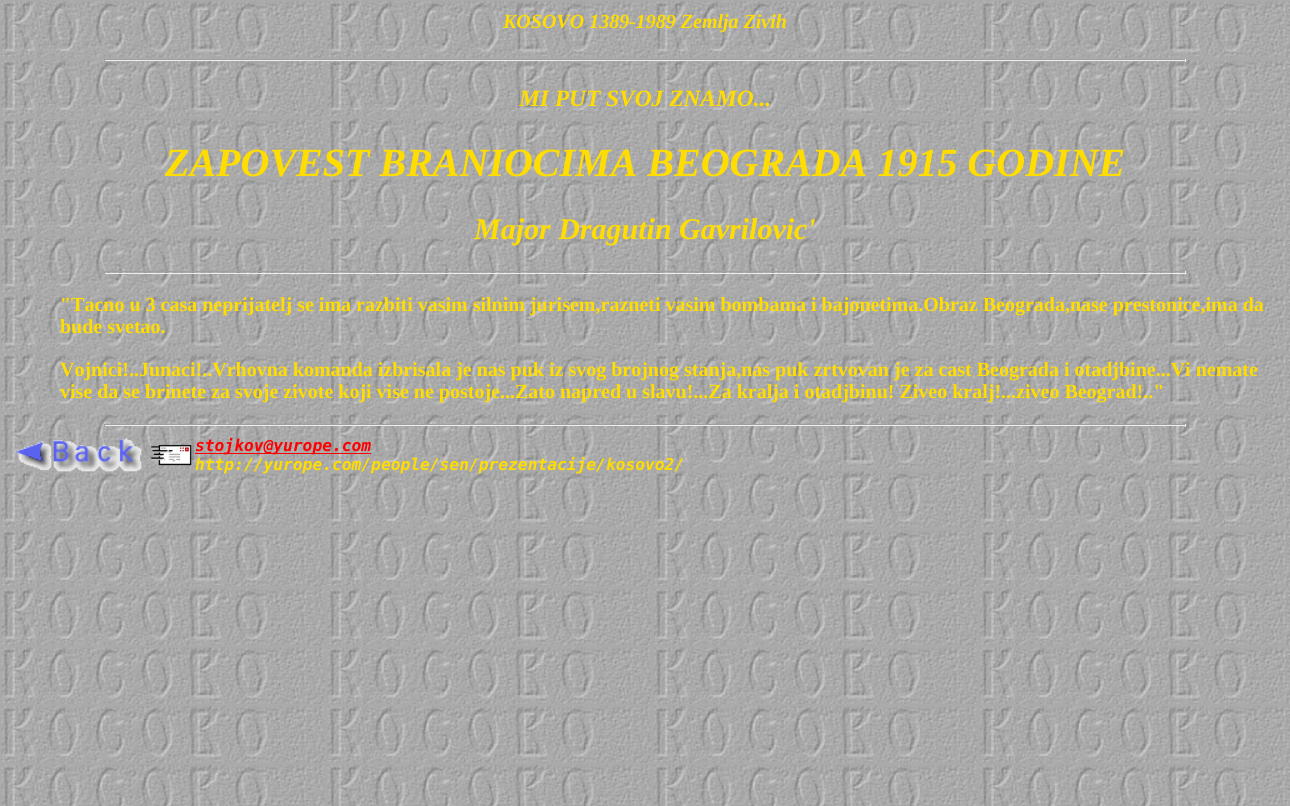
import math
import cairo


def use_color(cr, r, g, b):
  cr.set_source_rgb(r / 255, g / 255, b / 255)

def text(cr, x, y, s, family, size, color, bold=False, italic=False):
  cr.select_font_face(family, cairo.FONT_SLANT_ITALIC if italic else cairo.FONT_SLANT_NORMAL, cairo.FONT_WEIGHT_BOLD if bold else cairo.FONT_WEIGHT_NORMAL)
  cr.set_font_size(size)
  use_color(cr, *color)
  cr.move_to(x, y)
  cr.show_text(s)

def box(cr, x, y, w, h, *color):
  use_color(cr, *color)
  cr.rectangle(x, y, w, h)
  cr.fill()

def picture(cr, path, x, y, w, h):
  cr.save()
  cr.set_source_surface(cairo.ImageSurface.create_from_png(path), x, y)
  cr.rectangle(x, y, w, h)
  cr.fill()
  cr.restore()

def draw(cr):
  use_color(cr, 255, 255, 255)
  cr.paint()
  picture(cr, "img_01.png", 0, 0, 1290, 806)
  box(cr, 104, 59, 1082, 1, 159, 159, 159)
  box(cr, 1185, 59, 1, 3, 238, 238, 238)
  box(cr, 104, 60, 1082, 1, 238, 238, 238)
  box(cr, 104, 59, 1, 3, 159, 159, 159)
  box(cr, 104, 271, 1082, 1, 159, 159, 159)
  box(cr, 1185, 271, 1, 3, 238, 238, 238)
  box(cr, 104, 273, 1082, 1, 238, 238, 238)
  box(cr, 104, 271, 1, 3, 159, 159, 159)
  box(cr, 104, 424, 1082, 1, 159, 159, 159)
  box(cr, 1185, 424, 1, 3, 238, 238, 238)
  box(cr, 104, 425, 1082, 1, 238, 238, 238)
  box(cr, 104, 424, 1, 3, 159, 159, 159)
  picture(cr, "img_02.png", 15, 438, 127, 34)
  picture(cr, "img_03.png", 151, 444, 41, 22)
  box(cr, 195, 453, 176, 1, 255, 0, 0)
  text(cr, 503, 28, "KOSOVO 1389-1989 Zemlja Zivih", "Liberation Serif", 20, (255, 221, 0), bold=True, italic=True)
  text(cr, 519, 106, "MI PUT SVOJ ZNAMO...", "Liberation Serif", 23.4, (255, 221, 0), bold=True, italic=True)
  text(cr, 165, 176, "ZAPOVEST BRANIOCIMA BEOGRADA 1915 GODINE", "Liberation Serif", 40, (255, 221, 0), bold=True, italic=True)
  text(cr, 474, 239, "Major Dragutin Gavrilovic'", "Liberation Serif", 30, (255, 221, 0), bold=True, italic=True)
  text(cr, 60, 311, "\"Tacno u 3 casa neprijatelj se ima razbiti vasim silnim jurisem,razneti vasim bombama i bajonetima.Obraz Beograda,nase prestonice,ima da", "Liberation Serif", 20, (255, 221, 0), bold=True)
  text(cr, 60, 333, "bude svetao.", "Liberation Serif", 20, (255, 221, 0), bold=True)
  text(cr, 60, 376, "Vojnici!..Junaci!..Vrhovna komanda izbrisala je nas puk iz svog brojnog stanja,nas puk zrtvovan je za cast Beograda i otadjbine...Vi nemate", "Liberation Serif", 20, (255, 221, 0), bold=True)
  text(cr, 60, 398, "vise da se brinete za svoje zivote koji vise ne postoje...Zato napred u slavu!...Za kralja i otadjbinu! Ziveo kralj!...ziveo Beograd!..\"", "Liberation Serif", 20, (255, 221, 0), bold=True)
  text(cr, 195, 451, "stojkov@yurope.com", "DejaVu Sans Mono", 16.25, (255, 0, 0), bold=True, italic=True)
  text(cr, 195, 470, "http://yurope.com/people/sen/prezentacije/kosovo2/", "DejaVu Sans Mono", 16.25, (255, 221, 0), bold=True, italic=True)


surface = cairo.ImageSurface(cairo.FORMAT_RGB24, 1290, 806)
cr = cairo.Context(surface)
options = cairo.FontOptions()
options.set_hint_metrics(cairo.HINT_METRICS_OFF)
options.set_hint_style(cairo.HINT_STYLE_NONE)
cr.set_font_options(options)
cr.set_miter_limit(4)
draw(cr)
surface.write_to_png("out.png")
